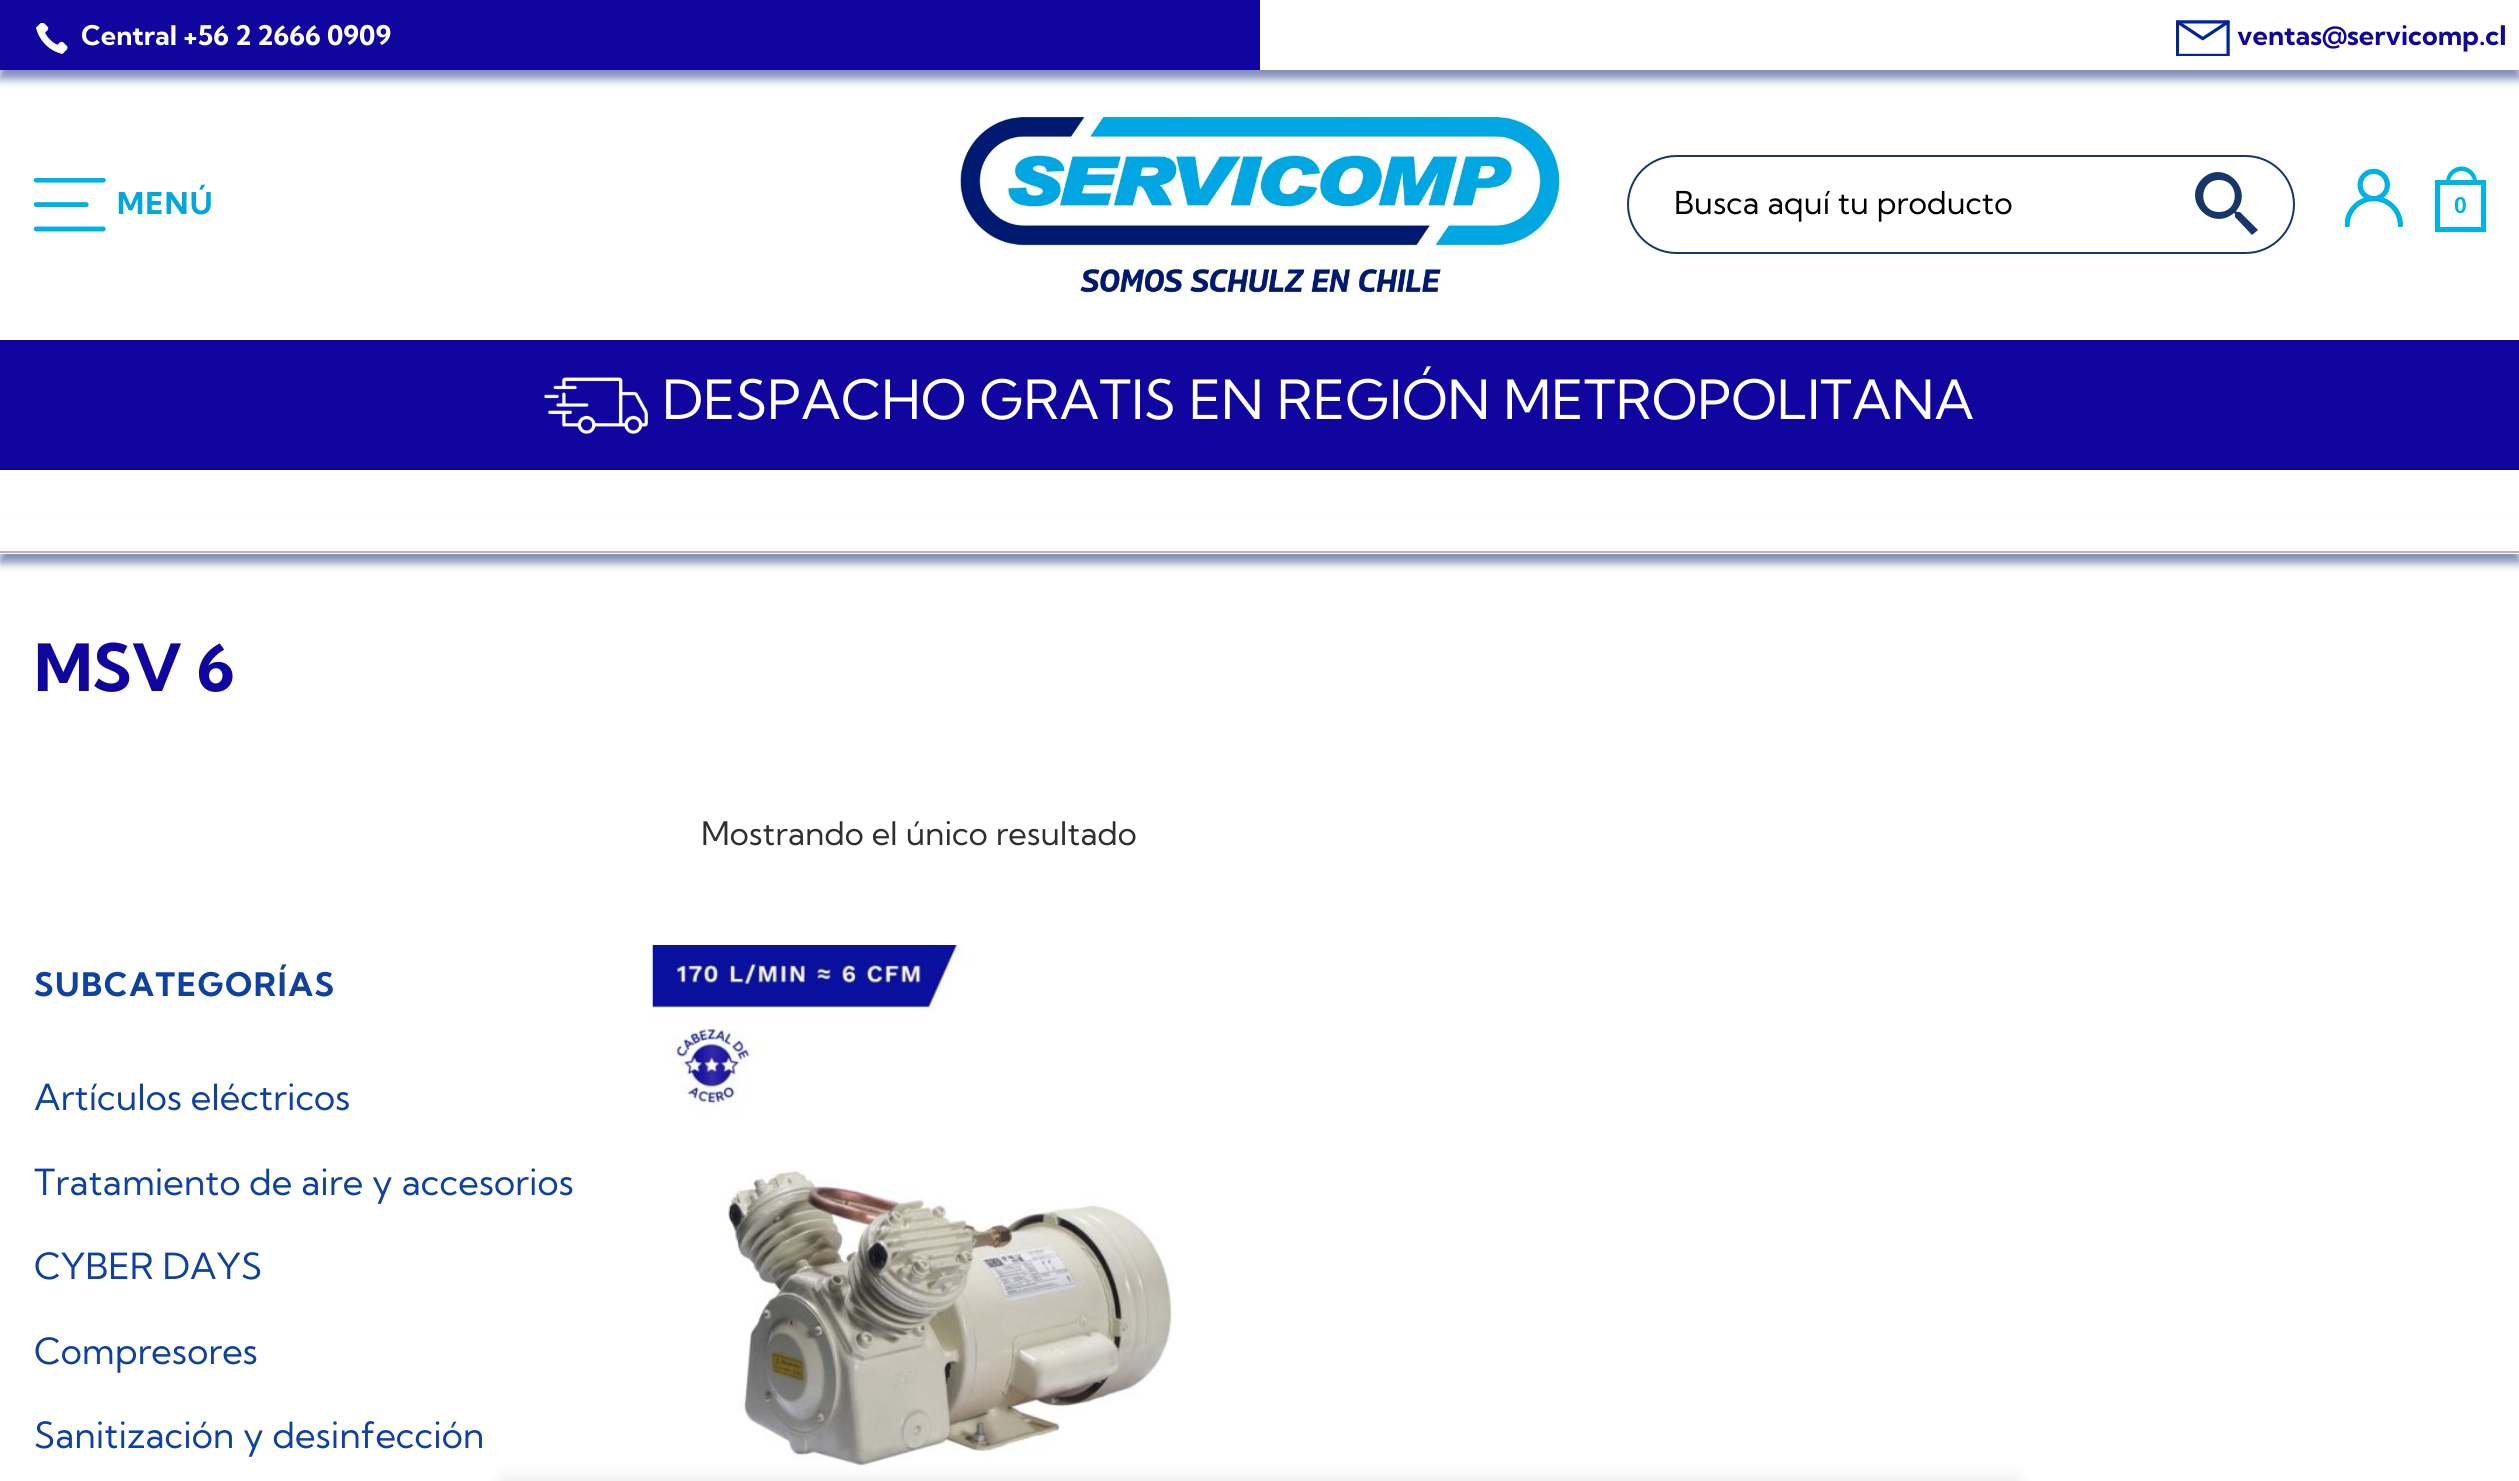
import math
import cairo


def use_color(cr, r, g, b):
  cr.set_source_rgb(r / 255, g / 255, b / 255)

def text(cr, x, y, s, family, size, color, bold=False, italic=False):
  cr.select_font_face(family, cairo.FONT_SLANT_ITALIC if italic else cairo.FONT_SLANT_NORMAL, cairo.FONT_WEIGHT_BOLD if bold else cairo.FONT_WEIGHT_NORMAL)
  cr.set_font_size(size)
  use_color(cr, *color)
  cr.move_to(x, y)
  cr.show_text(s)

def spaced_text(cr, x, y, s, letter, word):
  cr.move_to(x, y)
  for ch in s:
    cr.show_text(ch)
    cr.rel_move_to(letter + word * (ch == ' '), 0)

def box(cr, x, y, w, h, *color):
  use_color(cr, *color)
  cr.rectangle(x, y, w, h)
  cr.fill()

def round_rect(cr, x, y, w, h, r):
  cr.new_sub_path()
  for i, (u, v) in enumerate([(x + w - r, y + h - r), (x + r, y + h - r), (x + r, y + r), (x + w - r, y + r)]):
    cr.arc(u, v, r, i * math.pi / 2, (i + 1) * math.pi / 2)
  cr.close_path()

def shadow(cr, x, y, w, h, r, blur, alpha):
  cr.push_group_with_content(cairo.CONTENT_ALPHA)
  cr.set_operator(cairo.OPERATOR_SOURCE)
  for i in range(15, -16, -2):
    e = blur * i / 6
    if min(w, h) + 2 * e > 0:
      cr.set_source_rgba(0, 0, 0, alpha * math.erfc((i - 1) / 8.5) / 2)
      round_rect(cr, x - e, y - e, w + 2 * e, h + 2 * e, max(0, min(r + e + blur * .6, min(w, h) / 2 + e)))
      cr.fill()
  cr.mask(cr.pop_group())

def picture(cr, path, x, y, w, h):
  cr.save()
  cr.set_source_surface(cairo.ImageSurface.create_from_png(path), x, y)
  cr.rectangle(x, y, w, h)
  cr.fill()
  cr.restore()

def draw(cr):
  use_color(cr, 255, 255, 255)
  cr.paint()
  use_color(cr, 0, 26, 114)
  shadow(cr, 0, 9, 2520, 70, 0, 4.5, 0.5)
  box(cr, 0, 0, 1260, 70, 16, 6, 159)
  box(cr, 1260, 0, 1259, 70, 255, 255, 255)
  picture(cr, "img_01.png", 36, 23, 32, 31)
  picture(cr, "img_02.png", 2176, 20, 54, 36)
  picture(cr, "img_03.png", 34, 178, 72, 54)
  picture(cr, "img_04.png", 960, 112, 600, 185)
  round_rect(cr, 1628, 156, 666, 97, 48.5)
  use_color(cr, 24, 53, 108)
  cr.stroke()
  cr.new_path()
  cr.move_to(2240, 212)
  cr.line_to(2237, 212)
  cr.line_to(2236, 211)
  cr.curve_to(2255, 189, 2223, 158, 2202, 179)
  cr.curve_to(2181, 201, 2212, 232, 2234, 213)
  cr.line_to(2235, 214)
  cr.line_to(2235, 217)
  cr.line_to(2252, 235)
  cr.line_to(2258, 230)
  cr.close_path()
  cr.move_to(2219, 212)
  cr.curve_to(2198, 212, 2198, 180, 2219, 180)
  cr.curve_to(2240, 180, 2240, 212, 2219, 212)
  cr.close_path()
  cr.fill()
  picture(cr, "img_05.png", 2345, 169, 58, 58)
  cr.rectangle(2437.5, 182.5, 46, 47)
  use_color(cr, 0, 181, 226)
  cr.set_line_width(5)
  cr.stroke()
  cr.set_fill_rule(cairo.FILL_RULE_EVEN_ODD)
  cr.new_path()
  cr.move_to(2461.5, 166.5)
  cr.curve_to(2470, 166.5, 2477, 173.5, 2477, 182)
  cr.line_to(2477, 184.5)
  cr.line_to(2446, 184.5)
  cr.line_to(2446, 182)
  cr.curve_to(2446, 173.5, 2453, 166.5, 2461.5, 166.5)
  cr.close_path()
  cr.move_to(2461.5, 171)
  cr.curve_to(2467.5, 171, 2473, 176, 2473, 182)
  cr.line_to(2473, 184.5)
  cr.line_to(2450, 184.5)
  cr.line_to(2450, 182)
  cr.curve_to(2450, 176, 2455.5, 171, 2461.5, 171)
  cr.close_path()
  cr.fill()
  box(cr, 0, 340, 2519, 130, 16, 6, 159)
  picture(cr, "img_06.png", 544, 377, 104, 57)
  cr.save()
  cr.new_path()
  cr.move_to(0, 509)
  cr.line_to(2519, 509)
  cr.line_to(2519, 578)
  cr.line_to(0, 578)
  cr.close_path()
  cr.move_to(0, 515)
  cr.line_to(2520, 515)
  cr.line_to(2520, 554)
  cr.line_to(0, 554)
  cr.close_path()
  cr.clip()
  use_color(cr, 0, 26, 114)
  shadow(cr, 0, 524, 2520, 39, 0, 4.5, 0.5)
  cr.restore()
  box(cr, 0, 551, 2519, 2, 178, 178, 178)
  picture(cr, "img_07.png", 652, 945, 521, 523)
  use_color(cr, 0, 0, 0)
  shadow(cr, 504, 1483, 1512, 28, 0, 10, 0.14)
  text(cr, 81, 45, "Central +56 2 2666 0909", "Kumbh Sans", 27, (255, 255, 255), bold=True)
  text(cr, 2237, 45, "ventas@servicomp.cl", "Kumbh Sans", 27, (16, 6, 159), bold=True)
  cr.set_font_size(30)
  use_color(cr, 0, 166, 221)
  spaced_text(cr, 117, 214, "MENÚ", 1.5, 0)
  text(cr, 1674, 214, "Busca aquí tu producto", "Kumbh Sans", 31.5, (0, 0, 0))
  text(cr, 2454, 213, "0", "Liberation Sans", 23, (0, 181, 226), bold=True)
  text(cr, 662, 419, "DESPACHO GRATIS EN REGIÓN METROPOLITANA", "Kumbh Sans", 54, (255, 255, 255))
  text(cr, 34, 691, "MSV 6", "Kumbh Sans", 65, (16, 6, 159), bold=True)
  text(cr, 701, 845, "Mostrando el único resultado", "Kumbh Sans", 32.4, (47, 47, 47))
  cr.select_font_face("Kumbh Sans", cairo.FONT_SLANT_NORMAL, cairo.FONT_WEIGHT_BOLD)
  use_color(cr, 15, 65, 161)
  spaced_text(cr, 34, 996, "SUBCATEGORÍAS", 1.6, 0)
  text(cr, 34, 1110, "Artículos eléctricos", "Kumbh Sans", 36, (15, 65, 161))
  text(cr, 34, 1195, "Tratamiento de aire y accesorios", "Kumbh Sans", 36, (15, 65, 161))
  text(cr, 34, 1279, "CYBER DAYS", "Kumbh Sans", 36, (15, 65, 161))
  text(cr, 34, 1364, "Compresores", "Kumbh Sans", 36, (15, 65, 161))
  text(cr, 34, 1448, "Sanitización y desinfección", "Kumbh Sans", 36, (15, 65, 161))


surface = cairo.ImageSurface(cairo.FORMAT_RGB24, 2519, 1481)
cr = cairo.Context(surface)
options = cairo.FontOptions()
options.set_hint_metrics(cairo.HINT_METRICS_OFF)
options.set_hint_style(cairo.HINT_STYLE_NONE)
cr.set_font_options(options)
cr.set_miter_limit(4)
draw(cr)
surface.write_to_png("out.png")
